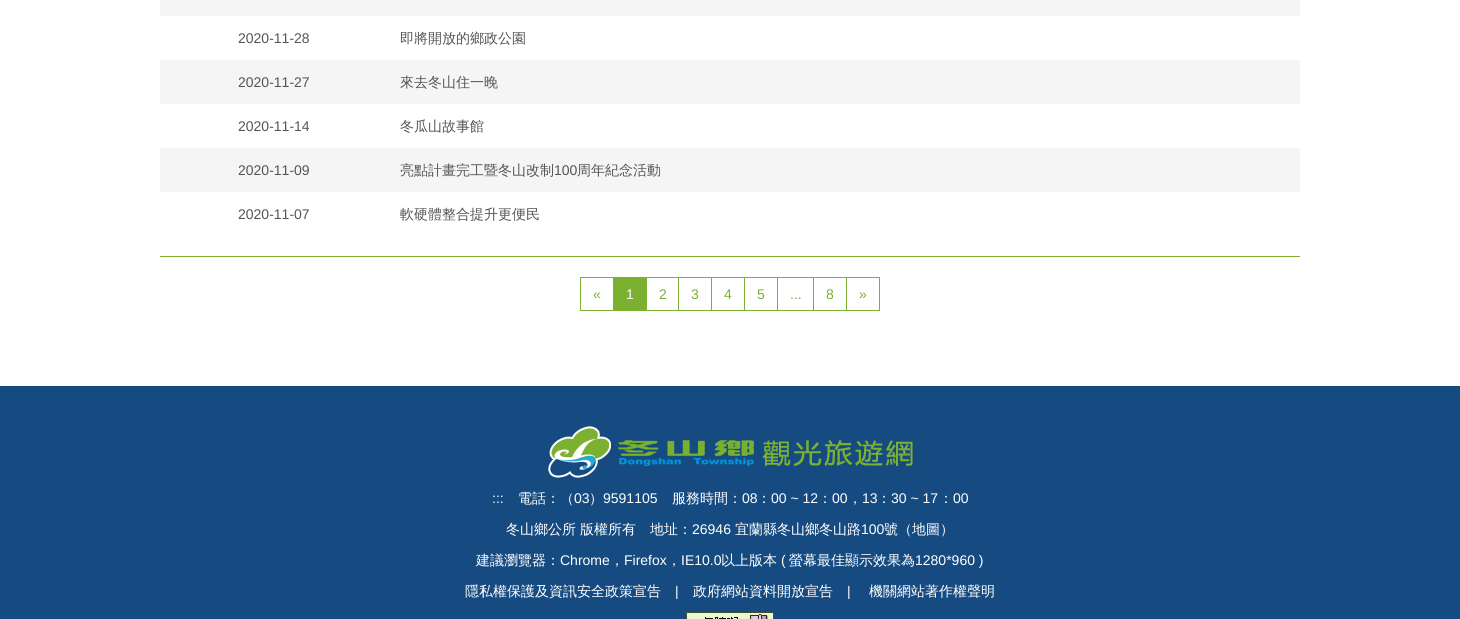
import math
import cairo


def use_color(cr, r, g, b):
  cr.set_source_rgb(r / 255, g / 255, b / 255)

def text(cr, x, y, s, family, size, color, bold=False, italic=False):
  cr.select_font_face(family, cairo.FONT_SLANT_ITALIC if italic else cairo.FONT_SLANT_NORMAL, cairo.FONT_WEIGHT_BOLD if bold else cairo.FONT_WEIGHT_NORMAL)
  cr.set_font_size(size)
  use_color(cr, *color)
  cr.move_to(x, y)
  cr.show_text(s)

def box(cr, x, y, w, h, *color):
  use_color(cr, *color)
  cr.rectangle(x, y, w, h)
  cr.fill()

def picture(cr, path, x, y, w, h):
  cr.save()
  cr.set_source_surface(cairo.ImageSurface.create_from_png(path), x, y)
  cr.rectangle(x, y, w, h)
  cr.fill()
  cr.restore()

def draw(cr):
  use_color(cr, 255, 255, 255)
  cr.paint()
  box(cr, 160, 0, 1140, 16, 245, 245, 245)
  box(cr, 160, 60, 1140, 44, 245, 245, 245)
  box(cr, 160, 148, 1140, 44, 245, 245, 245)
  box(cr, 160, 256, 1140, 1, 124, 176, 49)
  cr.rectangle(580.5, 277.5, 33, 33)
  cr.set_line_width(1)
  cr.stroke()
  box(cr, 614, 277, 32, 34, 124, 176, 49)
  cr.rectangle(646.5, 277.5, 32, 33)
  cr.stroke()
  cr.rectangle(678.5, 277.5, 33, 33)
  cr.stroke()
  cr.rectangle(711.5, 277.5, 33, 33)
  cr.stroke()
  cr.rectangle(744.5, 277.5, 33, 33)
  cr.stroke()
  cr.rectangle(777.5, 277.5, 36, 33)
  cr.stroke()
  cr.rectangle(813.5, 277.5, 33, 33)
  cr.stroke()
  cr.rectangle(846.5, 277.5, 33, 33)
  cr.stroke()
  box(cr, 0, 386, 1460, 233, 22, 75, 129)
  picture(cr, "img_01.png", 548, 426, 365, 52)
  picture(cr, "img_02.png", 686, 612, 88, 7)
  text(cr, 238, 43, "2020-11-28", "Liberation Sans", 14, (85, 85, 85))
  text(cr, 400, 43, "即將開放的鄉政公園", "WenQuanYi Zen Hei Medium", 14, (85, 85, 85))
  text(cr, 238, 87, "2020-11-27", "Liberation Sans", 14, (85, 85, 85))
  text(cr, 400, 87, "來去冬山住一晚", "WenQuanYi Zen Hei Medium", 14, (85, 85, 85))
  text(cr, 238, 131, "2020-11-14", "Liberation Sans", 14, (85, 85, 85))
  text(cr, 400, 131, "冬瓜山故事館", "WenQuanYi Zen Hei Medium", 14, (85, 85, 85))
  text(cr, 238, 175, "2020-11-09", "Liberation Sans", 14, (85, 85, 85))
  text(cr, 400, 175, "亮點計畫完工暨冬山改制", "WenQuanYi Zen Hei Medium", 14, (85, 85, 85))
  text(cr, 554, 175, "100", "Liberation Sans", 14, (85, 85, 85))
  text(cr, 577, 175, "周年紀念活動", "WenQuanYi Zen Hei Medium", 14, (85, 85, 85))
  text(cr, 238, 219, "2020-11-07", "Liberation Sans", 14, (85, 85, 85))
  text(cr, 400, 219, "軟硬體整合提升更便民", "WenQuanYi Zen Hei Medium", 14, (85, 85, 85))
  text(cr, 593, 299, "«", "Liberation Sans", 14, (124, 176, 49))
  text(cr, 626, 299, "1", "Liberation Sans", 14, (255, 255, 255))
  text(cr, 659, 299, "2", "Liberation Sans", 14, (124, 176, 49))
  text(cr, 691, 299, "3", "Liberation Sans", 14, (124, 176, 49))
  text(cr, 724, 299, "4", "Liberation Sans", 14, (124, 176, 49))
  text(cr, 757, 299, "5", "Liberation Sans", 14, (124, 176, 49))
  text(cr, 790, 299, "...", "Liberation Sans", 14, (124, 176, 49))
  text(cr, 826, 299, "8", "Liberation Sans", 14, (124, 176, 49))
  text(cr, 859, 299, "»", "Liberation Sans", 14, (124, 176, 49))
  text(cr, 492, 503, ":::", "Liberation Sans", 14, (255, 255, 255))
  text(cr, 518, 503, "電話：（", "WenQuanYi Zen Hei Medium", 14, (255, 255, 255))
  text(cr, 574, 503, "03", "Liberation Sans", 14, (255, 255, 255))
  text(cr, 589, 503, "）", "WenQuanYi Zen Hei Medium", 14, (255, 255, 255))
  text(cr, 603, 503, "9591105", "Liberation Sans", 14, (255, 255, 255))
  text(cr, 672, 503, "服務時間：", "WenQuanYi Zen Hei Medium", 14, (255, 255, 255))
  text(cr, 742, 503, "08", "Liberation Sans", 14, (255, 255, 255))
  text(cr, 757, 503, "：", "WenQuanYi Zen Hei Medium", 14, (255, 255, 255))
  text(cr, 771, 503, "00 ~ 12", "Liberation Sans", 14, (255, 255, 255))
  text(cr, 818, 503, "：", "WenQuanYi Zen Hei Medium", 14, (255, 255, 255))
  text(cr, 832, 503, "00", "Liberation Sans", 14, (255, 255, 255))
  text(cr, 848, 503, "，", "WenQuanYi Zen Hei Medium", 14, (255, 255, 255))
  text(cr, 862, 503, "13", "Liberation Sans", 14, (255, 255, 255))
  text(cr, 877, 503, "：", "WenQuanYi Zen Hei Medium", 14, (255, 255, 255))
  text(cr, 891, 503, "30 ~ 17", "Liberation Sans", 14, (255, 255, 255))
  text(cr, 939, 503, "：", "WenQuanYi Zen Hei Medium", 14, (255, 255, 255))
  text(cr, 953, 503, "00", "Liberation Sans", 14, (255, 255, 255))
  text(cr, 506, 534, "冬山鄉公所", "WenQuanYi Zen Hei Medium", 14, (255, 255, 255))
  text(cr, 580, 534, "版權所有　地址：", "WenQuanYi Zen Hei Medium", 14, (255, 255, 255))
  text(cr, 692, 534, "26946", "Liberation Sans", 14, (255, 255, 255))
  text(cr, 735, 534, "宜蘭縣冬山鄉冬山路", "WenQuanYi Zen Hei Medium", 14, (255, 255, 255))
  text(cr, 861, 534, "100", "Liberation Sans", 14, (255, 255, 255))
  text(cr, 884, 534, "號（地圖）", "WenQuanYi Zen Hei Medium", 14, (255, 255, 255))
  text(cr, 476, 565, "建議瀏覽器：", "WenQuanYi Zen Hei Medium", 14, (255, 255, 255))
  text(cr, 560, 565, "Chrome", "Liberation Sans", 14, (255, 255, 255))
  text(cr, 610, 565, "，", "WenQuanYi Zen Hei Medium", 14, (255, 255, 255))
  text(cr, 624, 565, "Firefox", "Liberation Sans", 14, (255, 255, 255))
  text(cr, 667, 565, "，", "WenQuanYi Zen Hei Medium", 14, (255, 255, 255))
  text(cr, 681, 565, "IE10.0", "Liberation Sans", 14, (255, 255, 255))
  text(cr, 721, 565, "以上版本", "WenQuanYi Zen Hei Medium", 14, (255, 255, 255))
  text(cr, 781, 565, "(", "Liberation Sans", 14, (255, 255, 255))
  text(cr, 789, 565, "螢幕最佳顯示效果為", "WenQuanYi Zen Hei Medium", 14, (255, 255, 255))
  text(cr, 915, 565, "1280*960 )", "Liberation Sans", 14, (255, 255, 255))
  text(cr, 465, 596, "隱私權保護及資訊安全政策宣告", "WenQuanYi Zen Hei Medium", 14, (255, 255, 255))
  text(cr, 675, 596, "|", "Liberation Sans", 14, (255, 255, 255))
  text(cr, 693, 596, "政府網站資料開放宣告", "WenQuanYi Zen Hei Medium", 14, (255, 255, 255))
  text(cr, 847, 596, "|", "Liberation Sans", 14, (255, 255, 255))
  text(cr, 869, 596, "機關網站著作權聲明", "WenQuanYi Zen Hei Medium", 14, (255, 255, 255))


surface = cairo.ImageSurface(cairo.FORMAT_RGB24, 1460, 619)
cr = cairo.Context(surface)
options = cairo.FontOptions()
options.set_hint_metrics(cairo.HINT_METRICS_OFF)
options.set_hint_style(cairo.HINT_STYLE_NONE)
cr.set_font_options(options)
cr.set_miter_limit(4)
draw(cr)
surface.write_to_png("out.png")
